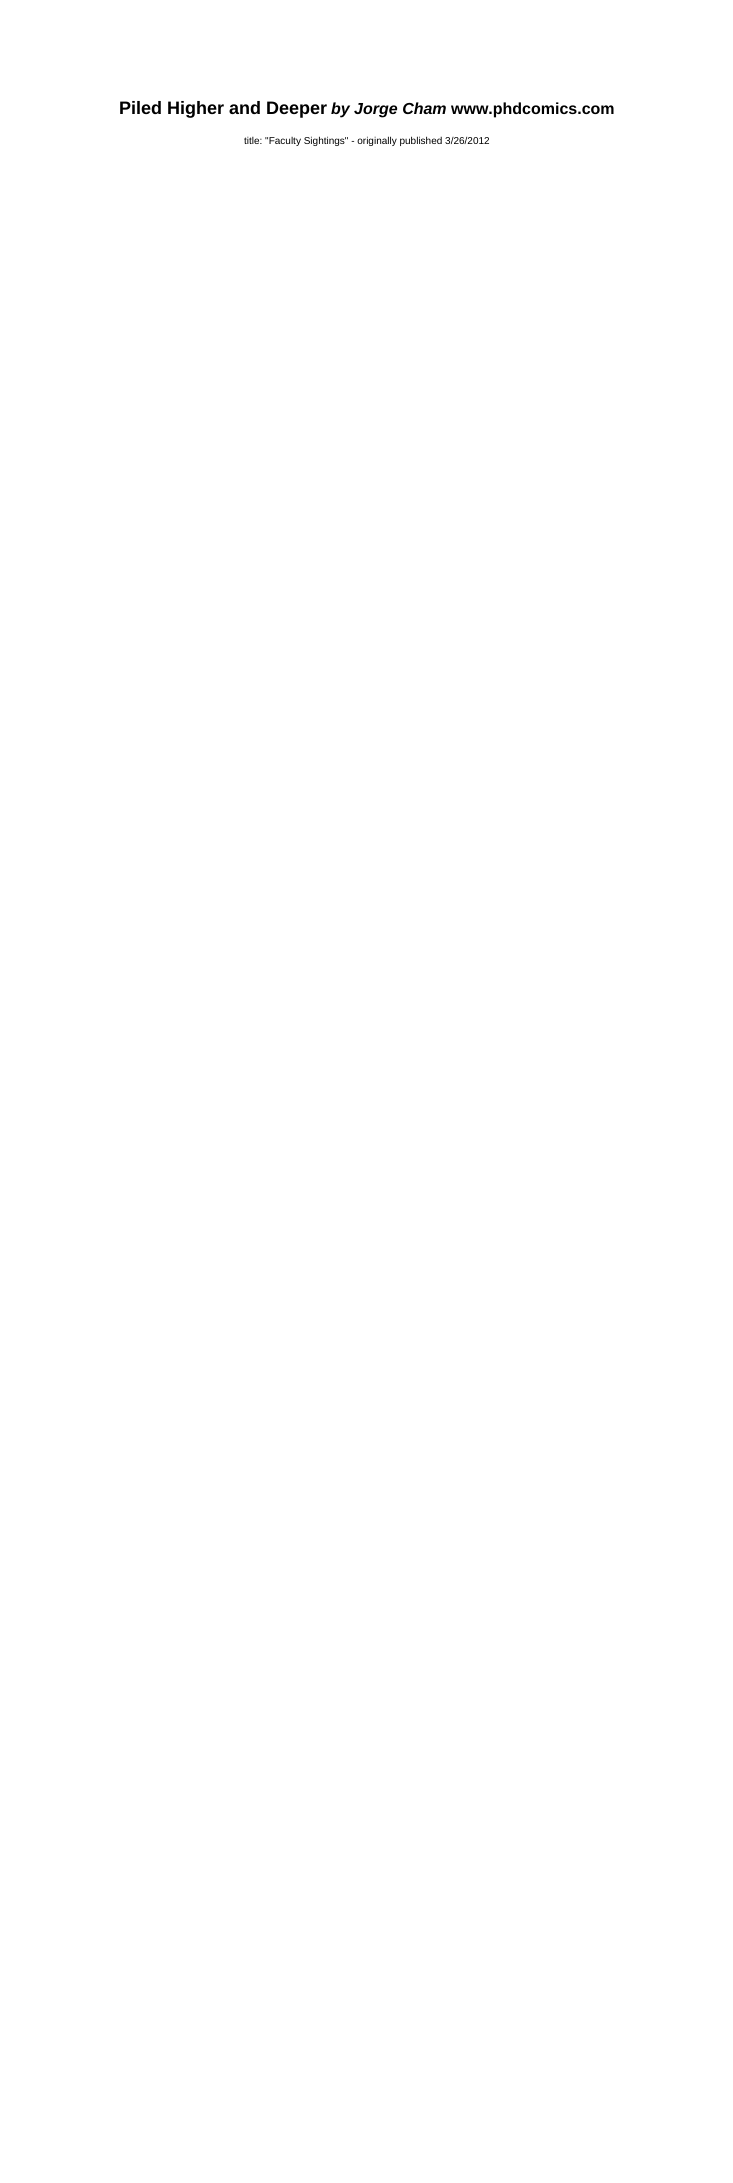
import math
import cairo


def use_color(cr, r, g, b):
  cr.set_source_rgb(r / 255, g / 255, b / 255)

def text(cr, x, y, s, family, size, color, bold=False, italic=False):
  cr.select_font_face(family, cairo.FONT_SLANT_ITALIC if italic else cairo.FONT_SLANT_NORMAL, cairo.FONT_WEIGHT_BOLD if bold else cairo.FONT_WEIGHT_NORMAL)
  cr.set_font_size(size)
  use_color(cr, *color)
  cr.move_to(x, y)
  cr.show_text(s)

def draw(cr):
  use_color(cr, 255, 255, 255)
  cr.paint()
  text(cr, 119, 114, "Piled Higher and Deeper", "Liberation Sans", 18, (0, 0, 0), bold=True)
  text(cr, 331, 114, "by Jorge Cham", "Liberation Sans", 16, (0, 0, 0), bold=True, italic=True)
  text(cr, 451, 114, "www.phdcomics.com", "Liberation Sans", 16, (0, 0, 0), bold=True)
  text(cr, 244, 144, "title: \"Faculty Sightings\" - originally published 3/26/2012", "Liberation Sans", 10, (0, 0, 0))


surface = cairo.ImageSurface(cairo.FORMAT_RGB24, 733, 2183)
cr = cairo.Context(surface)
options = cairo.FontOptions()
options.set_hint_metrics(cairo.HINT_METRICS_OFF)
options.set_hint_style(cairo.HINT_STYLE_NONE)
cr.set_font_options(options)
cr.set_miter_limit(4)
draw(cr)
surface.write_to_png("out.png")
